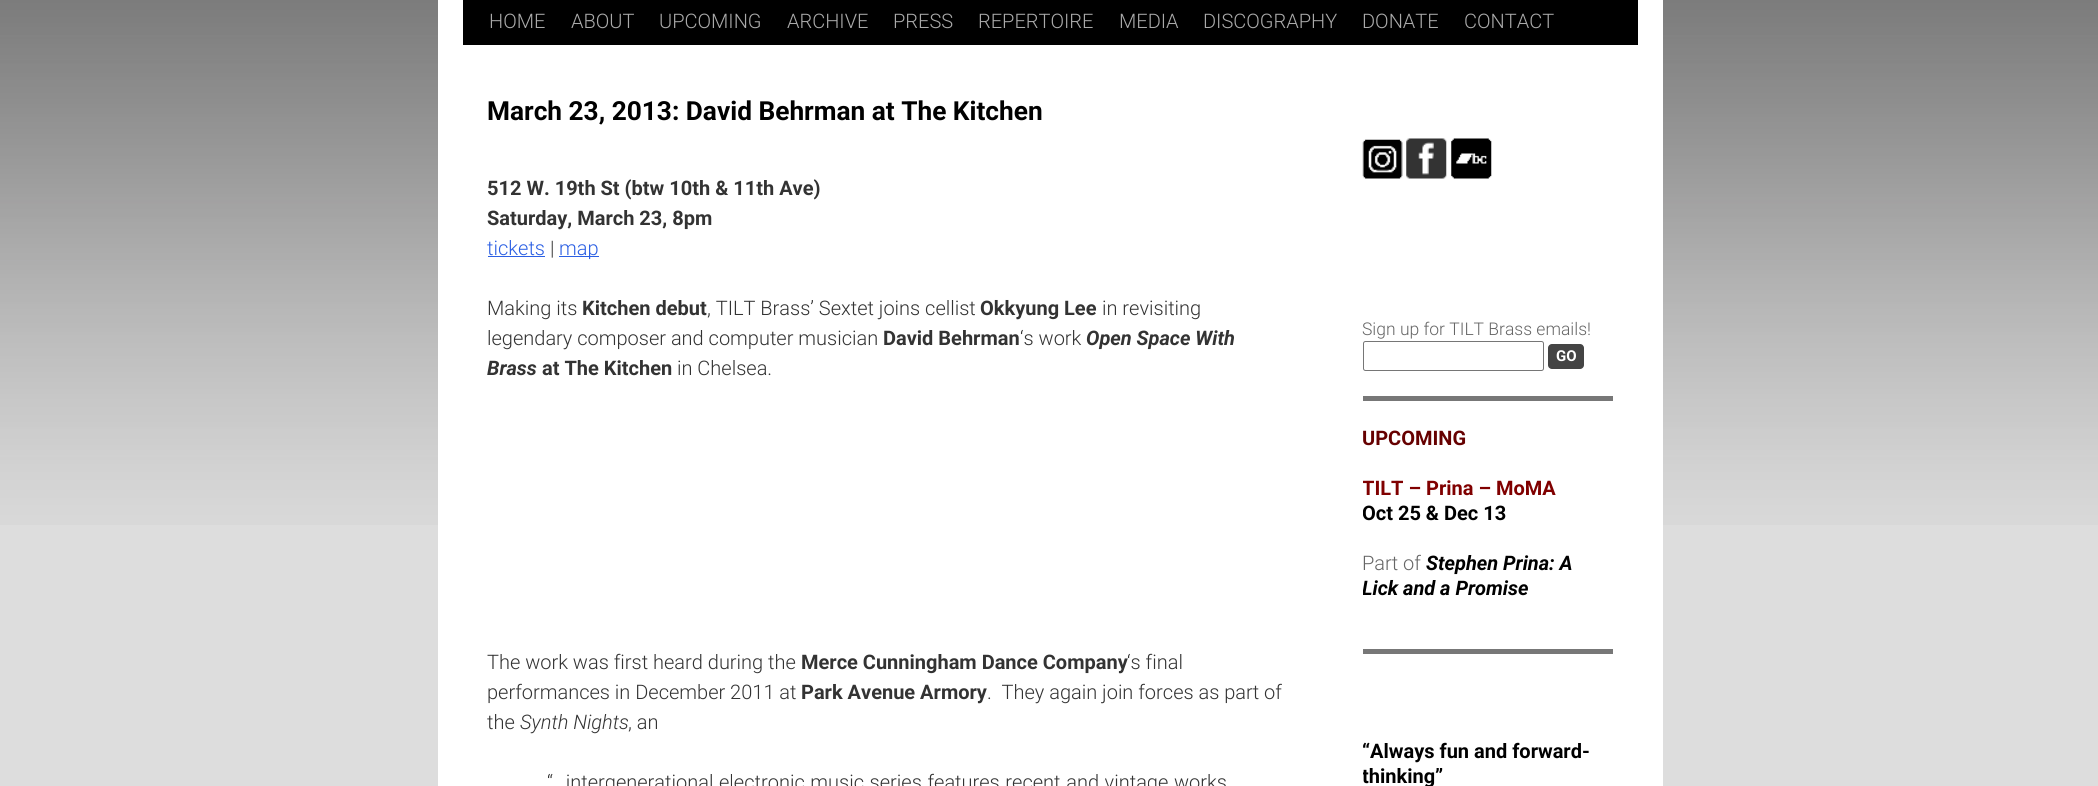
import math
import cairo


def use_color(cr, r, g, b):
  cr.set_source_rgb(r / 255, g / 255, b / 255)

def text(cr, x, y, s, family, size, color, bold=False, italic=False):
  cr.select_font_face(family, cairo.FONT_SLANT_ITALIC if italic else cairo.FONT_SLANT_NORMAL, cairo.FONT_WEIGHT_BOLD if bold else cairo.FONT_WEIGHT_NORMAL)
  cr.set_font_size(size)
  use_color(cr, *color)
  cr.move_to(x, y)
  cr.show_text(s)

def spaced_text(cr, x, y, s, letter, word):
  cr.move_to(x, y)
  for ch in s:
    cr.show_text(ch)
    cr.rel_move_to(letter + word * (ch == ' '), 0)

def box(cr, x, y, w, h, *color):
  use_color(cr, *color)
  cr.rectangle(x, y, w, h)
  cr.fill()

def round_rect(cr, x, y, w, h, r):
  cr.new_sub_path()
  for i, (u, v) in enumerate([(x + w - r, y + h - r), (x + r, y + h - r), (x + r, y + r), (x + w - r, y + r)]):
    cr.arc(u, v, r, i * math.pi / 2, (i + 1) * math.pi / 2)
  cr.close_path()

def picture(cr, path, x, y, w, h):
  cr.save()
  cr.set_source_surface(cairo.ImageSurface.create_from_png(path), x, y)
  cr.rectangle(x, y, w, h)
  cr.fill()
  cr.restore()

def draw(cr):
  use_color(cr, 221, 221, 221)
  cr.paint()
  picture(cr, "img_01.png", 0, 0, 2098, 525)
  box(cr, 438, 0, 1225, 786, 255, 255, 255)
  box(cr, 463, 0, 1175, 45, 0, 0, 0)
  box(cr, 488, 256, 57, 1, 43, 95, 227)
  box(cr, 559, 256, 40, 1, 43, 95, 227)
  box(cr, 1363, 396, 250, 5, 119, 119, 119)
  picture(cr, "img_02.png", 1362, 139, 41, 40)
  picture(cr, "img_03.png", 1406, 138, 41, 41)
  picture(cr, "img_04.png", 1451, 138, 41, 41)
  round_rect(cr, 1363.5, 341.5, 180, 29, 2)
  use_color(cr, 118, 118, 118)
  cr.set_line_width(1)
  cr.stroke()
  use_color(cr, 68, 68, 68)
  round_rect(cr, 1548, 344, 36, 25, 4)
  cr.fill()
  box(cr, 1363, 649, 250, 5, 119, 119, 119)
  text(cr, 489, 28, "HOME", "Roboto Light", 20, (170, 170, 170))
  text(cr, 571, 28, "ABOUT", "Roboto Light", 20, (170, 170, 170))
  text(cr, 659, 28, "UPCOMING", "Roboto Light", 20, (170, 170, 170))
  text(cr, 787, 28, "ARCHIVE", "Roboto Light", 20, (170, 170, 170))
  text(cr, 893, 28, "PRESS", "Roboto Light", 20, (170, 170, 170))
  text(cr, 978, 28, "REPERTOIRE", "Roboto Light", 20, (170, 170, 170))
  text(cr, 1119, 28, "MEDIA", "Roboto Light", 20, (170, 170, 170))
  text(cr, 1203, 28, "DISCOGRAPHY", "Roboto Light", 20, (170, 170, 170))
  text(cr, 1362, 28, "DONATE", "Roboto Light", 20, (170, 170, 170))
  text(cr, 1464, 28, "CONTACT", "Roboto Light", 20, (170, 170, 170))
  text(cr, 487, 120, "March 23, 2013: David Behrman at The Kitchen", "Roboto", 26.25, (0, 0, 0), bold=True)
  text(cr, 487, 195, "512 W. 19th St (btw 10th & 11th Ave)", "Roboto", 20, (51, 51, 51), bold=True)
  text(cr, 487, 225, "Saturday, March 23, 8pm", "Roboto", 20, (51, 51, 51), bold=True)
  text(cr, 487, 255, "tickets", "Roboto Light", 20, (43, 95, 227))
  text(cr, 550, 255, "|", "Roboto Light", 20, (51, 51, 51))
  text(cr, 559, 255, "map", "Roboto Light", 20, (43, 95, 227))
  text(cr, 487, 315, "Making its", "Roboto Light", 20, (51, 51, 51))
  text(cr, 582, 315, "Kitchen debut", "Roboto", 20, (51, 51, 51), bold=True)
  text(cr, 707, 315, ", TILT Brass’ Sextet joins cellist", "Roboto Light", 20, (51, 51, 51))
  text(cr, 980, 315, "Okkyung Lee", "Roboto", 20, (51, 51, 51), bold=True)
  text(cr, 1102, 315, "in revisiting", "Roboto Light", 20, (51, 51, 51))
  text(cr, 487, 345, "legendary composer and computer musician", "Roboto Light", 20, (51, 51, 51))
  text(cr, 883, 345, "David Behrman", "Roboto", 20, (51, 51, 51), bold=True)
  text(cr, 1020, 345, "‘s work", "Roboto Light", 20, (51, 51, 51))
  text(cr, 1086, 345, "Open Space With", "Roboto", 20, (51, 51, 51), bold=True, italic=True)
  text(cr, 487, 375, "Brass", "Roboto", 20, (51, 51, 51), bold=True, italic=True)
  text(cr, 542, 375, "at The Kitchen", "Roboto", 20, (51, 51, 51), bold=True)
  text(cr, 677, 375, "in Chelsea.", "Roboto Light", 20, (51, 51, 51))
  text(cr, 487, 669, "The work was first heard during the", "Roboto Light", 20, (51, 51, 51))
  text(cr, 801, 669, "Merce Cunningham Dance Company", "Roboto", 20, (51, 51, 51), bold=True)
  text(cr, 1127, 669, "‘s final", "Roboto Light", 20, (51, 51, 51))
  text(cr, 487, 699, "performances in December 2011 at", "Roboto Light", 20, (51, 51, 51))
  text(cr, 801, 699, "Park Avenue Armory", "Roboto", 20, (51, 51, 51), bold=True)
  text(cr, 987, 699, ".  They again join forces as part of", "Roboto Light", 20, (51, 51, 51))
  text(cr, 487, 729, "the", "Roboto Light", 20, (51, 51, 51))
  text(cr, 520, 729, "Synth Nights", "Roboto Light", 20, (51, 51, 51), italic=True)
  text(cr, 628, 729, ", an", "Roboto Light", 20, (51, 51, 51))
  spaced_text(cr, 547, 789, "“…intergenerational electronic music series features recent and vintage works", 0, 0.75)
  text(cr, 1362, 335, "Sign up for TILT Brass emails!", "Roboto Light", 17.5, (102, 102, 102))
  text(cr, 1556, 361, "GO", "Roboto", 15, (255, 255, 255), bold=True)
  text(cr, 1362, 445, "UPCOMING", "Roboto", 20, (102, 0, 0), bold=True)
  cr.save()
  cr.rectangle(1363, 95, 275, 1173)
  cr.clip()
  text(cr, 1362, 495, "TILT – Prina – MoMA", "Roboto", 20, (128, 0, 0), bold=True)
  text(cr, 1362, 520, "Oct 25 & Dec 13", "Roboto", 20, (0, 0, 0), bold=True)
  cr.restore()
  text(cr, 1362, 570, "Part of", "Roboto Light", 20, (102, 102, 102))
  text(cr, 1426, 570, "Stephen Prina: A", "Roboto", 20, (0, 0, 0), bold=True, italic=True)
  cr.save()
  cr.rectangle(1363, 95, 275, 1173)
  cr.clip()
  text(cr, 1362, 595, "Lick and a Promise", "Roboto", 20, (0, 0, 0), bold=True, italic=True)
  cr.restore()
  text(cr, 1362, 758, "“Always fun and forward-", "Roboto", 20, (0, 0, 0), bold=True)
  cr.save()
  cr.rectangle(1363, 95, 275, 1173)
  cr.clip()
  text(cr, 1362, 783, "thinking”", "Roboto", 20, (0, 0, 0), bold=True)
  cr.restore()


surface = cairo.ImageSurface(cairo.FORMAT_RGB24, 2098, 786)
cr = cairo.Context(surface)
options = cairo.FontOptions()
options.set_hint_metrics(cairo.HINT_METRICS_OFF)
options.set_hint_style(cairo.HINT_STYLE_NONE)
cr.set_font_options(options)
cr.set_miter_limit(4)
draw(cr)
surface.write_to_png("out.png")
